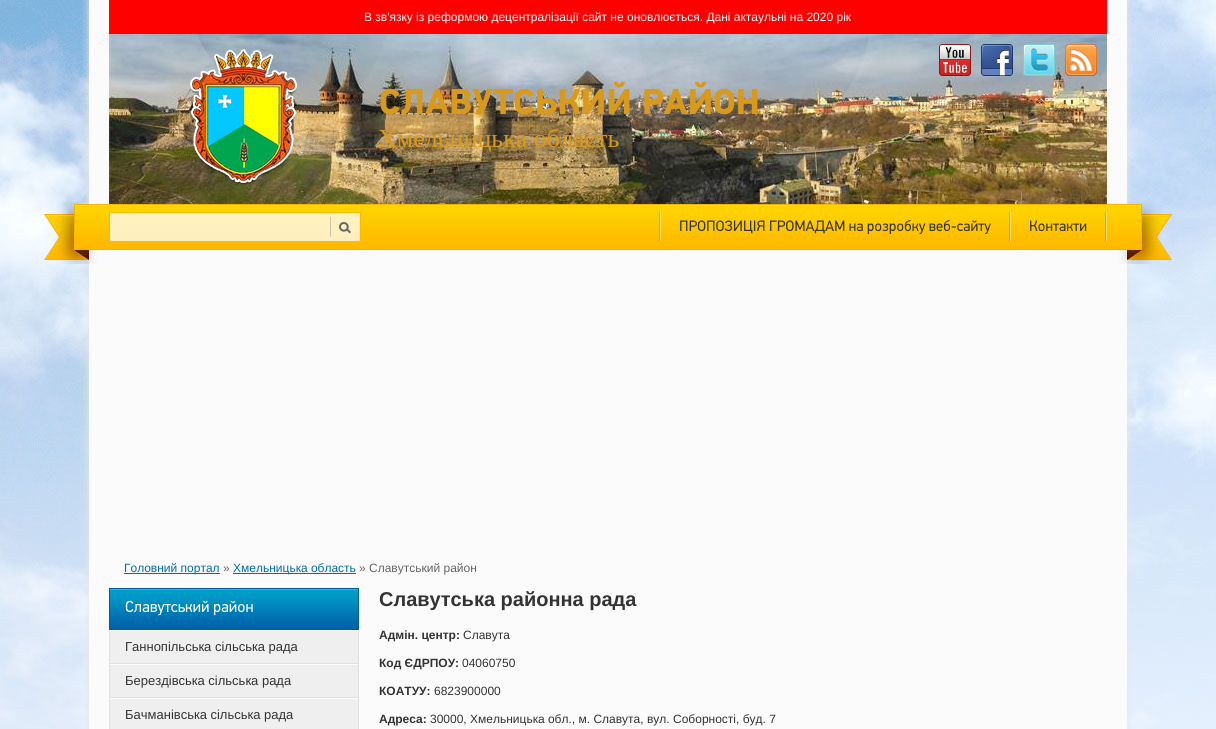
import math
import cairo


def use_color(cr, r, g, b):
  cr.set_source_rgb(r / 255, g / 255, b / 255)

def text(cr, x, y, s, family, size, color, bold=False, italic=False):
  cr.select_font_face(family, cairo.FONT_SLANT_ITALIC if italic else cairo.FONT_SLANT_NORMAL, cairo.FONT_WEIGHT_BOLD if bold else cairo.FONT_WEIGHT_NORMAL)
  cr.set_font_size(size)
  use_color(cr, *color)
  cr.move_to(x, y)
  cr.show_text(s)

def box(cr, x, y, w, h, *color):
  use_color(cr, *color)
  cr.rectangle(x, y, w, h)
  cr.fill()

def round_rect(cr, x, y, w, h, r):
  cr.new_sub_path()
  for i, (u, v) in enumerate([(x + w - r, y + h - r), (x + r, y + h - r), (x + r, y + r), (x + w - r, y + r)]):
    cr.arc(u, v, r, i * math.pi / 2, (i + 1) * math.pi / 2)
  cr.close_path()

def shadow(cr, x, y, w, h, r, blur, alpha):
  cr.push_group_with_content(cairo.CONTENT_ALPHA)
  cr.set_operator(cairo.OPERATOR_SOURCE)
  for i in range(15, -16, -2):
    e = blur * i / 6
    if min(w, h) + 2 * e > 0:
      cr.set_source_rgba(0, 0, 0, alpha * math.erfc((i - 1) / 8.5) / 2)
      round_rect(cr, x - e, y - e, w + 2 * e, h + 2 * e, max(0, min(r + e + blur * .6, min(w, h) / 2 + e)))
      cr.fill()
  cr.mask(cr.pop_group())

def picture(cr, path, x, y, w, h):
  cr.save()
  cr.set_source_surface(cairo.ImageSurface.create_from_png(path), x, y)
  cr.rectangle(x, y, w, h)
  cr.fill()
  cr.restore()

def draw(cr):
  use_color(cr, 255, 255, 255)
  cr.paint()
  picture(cr, "img_01.png", 0, 0, 1216, 729)
  use_color(cr, 231, 231, 231)
  shadow(cr, 89, 0, 1038, 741, 0, 4, 1)
  box(cr, 89, 0, 1038, 729, 251, 251, 251)
  box(cr, 109, 0, 998, 34, 255, 0, 0)
  picture(cr, "img_02.png", 109, 34, 998, 170)
  picture(cr, "img_03.png", 109, 34, 998, 170)
  picture(cr, "img_04.png", 190, 49, 107, 137)
  picture(cr, "img_05.png", 380, 81, 378, 34)
  picture(cr, "img_06.png", 939, 44, 32, 32)
  picture(cr, "img_07.png", 981, 44, 32, 32)
  picture(cr, "img_08.png", 1023, 44, 32, 32)
  picture(cr, "img_09.png", 1065, 44, 32, 32)
  picture(cr, "img_10.png", 44, 202, 1128, 62)
  picture(cr, "img_11.png", 109, 212, 252, 29)
  picture(cr, "img_12.png", 659, 212, 2, 29)
  picture(cr, "img_13.png", 680, 220, 311, 14)
  picture(cr, "img_12.png", 1009, 212, 2, 29)
  picture(cr, "img_14.png", 1030, 220, 57, 12)
  picture(cr, "img_12.png", 1105, 212, 2, 29)
  box(cr, 124, 573, 96, 1, 0, 109, 175)
  box(cr, 233, 573, 123, 1, 0, 109, 175)
  picture(cr, "img_15.png", 110, 589, 248, 40)
  cr.rectangle(109.5, 588.5, 249, 41)
  use_color(cr, 0, 92, 158)
  cr.set_line_width(1)
  cr.stroke()
  picture(cr, "img_16.png", 125, 600, 128, 16)
  box(cr, 110, 631, 248, 98, 239, 239, 239)
  box(cr, 358, 630, 1, 99, 224, 224, 224)
  box(cr, 109, 630, 1, 99, 224, 224, 224)
  box(cr, 110, 630, 248, 1, 254, 254, 254)
  box(cr, 110, 663, 248, 1, 224, 224, 224)
  box(cr, 110, 664, 248, 1, 254, 254, 254)
  box(cr, 110, 697, 248, 1, 224, 224, 224)
  box(cr, 110, 698, 248, 1, 254, 254, 254)
  text(cr, 364, 21, "В зв'язку із реформою децентралізації сайт не оновлюється. Дані актаульні на 2020 рік", "Liberation Sans", 12, (255, 255, 255))
  text(cr, 378, 147, "Хмельницька область", "Liberation Serif", 26, (217, 153, 26))
  text(cr, 124, 572, "Головний портал", "Liberation Sans", 12, (0, 109, 175))
  text(cr, 223, 572, "»", "Liberation Sans", 12, (102, 102, 102))
  text(cr, 233, 572, "Хмельницька область", "Liberation Sans", 12, (0, 109, 175))
  text(cr, 359, 572, "» Славутський район", "Liberation Sans", 12, (102, 102, 102))
  text(cr, 125, 651, "Ганнопільська сільська рада", "Liberation Sans", 13, (51, 51, 51))
  text(cr, 125, 685, "Берездівська сільська рада", "Liberation Sans", 13, (51, 51, 51))
  text(cr, 125, 719, "Бачманівська сільська рада", "Liberation Sans", 13, (51, 51, 51))
  text(cr, 379, 606, "Славутська районна рада", "Liberation Sans", 20, (51, 51, 51), bold=True)
  text(cr, 379, 639, "Адмін. центр:", "Liberation Sans", 12, (51, 51, 51), bold=True)
  text(cr, 463, 639, "Славута", "Liberation Sans", 12, (51, 51, 51))
  text(cr, 379, 667, "Код ЄДРПОУ:", "Liberation Sans", 12, (51, 51, 51), bold=True)
  text(cr, 462, 667, "04060750", "Liberation Sans", 12, (51, 51, 51))
  text(cr, 379, 695, "КОАТУУ:", "Liberation Sans", 12, (51, 51, 51), bold=True)
  text(cr, 434, 695, "6823900000", "Liberation Sans", 12, (51, 51, 51))
  text(cr, 379, 723, "Адреса:", "Liberation Sans", 12, (51, 51, 51), bold=True)
  text(cr, 430, 723, "30000, Хмельницька обл., м. Cлавута, вул. Cоборності, буд. 7", "Liberation Sans", 12, (51, 51, 51))


surface = cairo.ImageSurface(cairo.FORMAT_RGB24, 1216, 729)
cr = cairo.Context(surface)
options = cairo.FontOptions()
options.set_hint_metrics(cairo.HINT_METRICS_OFF)
options.set_hint_style(cairo.HINT_STYLE_NONE)
cr.set_font_options(options)
cr.set_miter_limit(4)
draw(cr)
surface.write_to_png("out.png")
